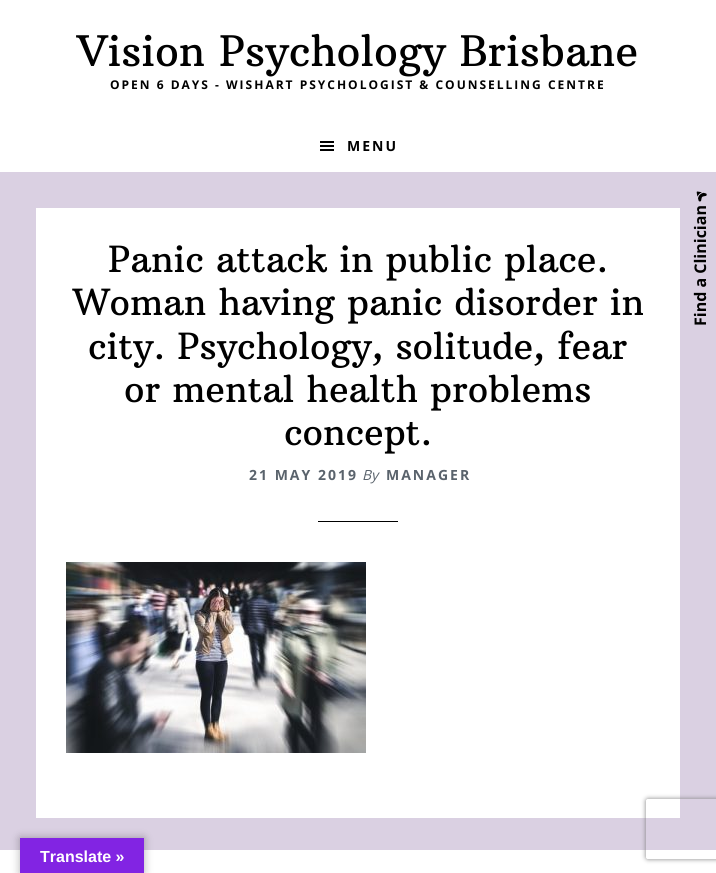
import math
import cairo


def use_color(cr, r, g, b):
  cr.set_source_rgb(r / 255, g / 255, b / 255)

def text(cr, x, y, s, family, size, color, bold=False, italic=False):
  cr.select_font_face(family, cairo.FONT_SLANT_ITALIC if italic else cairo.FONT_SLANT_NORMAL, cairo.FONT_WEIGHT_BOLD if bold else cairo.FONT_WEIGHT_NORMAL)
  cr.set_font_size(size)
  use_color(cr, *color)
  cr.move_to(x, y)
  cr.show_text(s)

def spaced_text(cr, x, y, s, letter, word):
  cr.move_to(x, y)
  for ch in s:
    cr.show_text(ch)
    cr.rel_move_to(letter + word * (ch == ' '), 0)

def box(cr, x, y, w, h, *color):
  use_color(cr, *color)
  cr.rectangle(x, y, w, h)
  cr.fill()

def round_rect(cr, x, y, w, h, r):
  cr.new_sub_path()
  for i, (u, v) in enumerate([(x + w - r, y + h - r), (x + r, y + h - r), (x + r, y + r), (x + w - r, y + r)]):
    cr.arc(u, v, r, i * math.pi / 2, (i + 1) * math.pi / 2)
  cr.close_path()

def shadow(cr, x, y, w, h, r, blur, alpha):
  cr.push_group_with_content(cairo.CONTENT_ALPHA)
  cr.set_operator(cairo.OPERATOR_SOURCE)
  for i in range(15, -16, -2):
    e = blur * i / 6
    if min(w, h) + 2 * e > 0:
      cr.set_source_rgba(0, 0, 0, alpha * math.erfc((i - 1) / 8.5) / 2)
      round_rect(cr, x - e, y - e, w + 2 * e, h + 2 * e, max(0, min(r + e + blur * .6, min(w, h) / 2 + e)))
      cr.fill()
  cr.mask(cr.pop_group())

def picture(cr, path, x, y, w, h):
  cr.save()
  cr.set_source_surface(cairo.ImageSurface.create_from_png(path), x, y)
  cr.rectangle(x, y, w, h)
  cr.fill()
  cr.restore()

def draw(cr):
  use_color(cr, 218, 208, 226)
  cr.paint()
  box(cr, 0, 0, 716, 172, 255, 255, 255)
  picture(cr, "img_01.png", 320, 141, 14, 10)
  box(cr, 36, 208, 644, 610, 255, 255, 255)
  box(cr, 318, 521, 80, 1, 0, 0, 0)
  picture(cr, "img_02.png", 66, 562, 300, 191)
  box(cr, 0, 850, 716, 23, 255, 255, 255)
  picture(cr, "img_03.png", 696, 191, 11, 11)
  use_color(cr, 0, 0, 0)
  shadow(cr, 20, 838, 124, 35, 0, 4.5, 0.3)
  box(cr, 20, 838, 124, 35, 130, 36, 227)
  cr.save()
  cr.set_fill_rule(cairo.FILL_RULE_EVEN_ODD)
  cr.new_path()
  cr.move_to(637, 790)
  cr.line_to(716, 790)
  cr.line_to(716, 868)
  cr.line_to(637, 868)
  cr.close_path()
  cr.move_to(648, 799)
  cr.line_to(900, 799)
  cr.curve_to(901, 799, 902, 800, 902, 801)
  cr.line_to(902, 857)
  cr.curve_to(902, 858, 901, 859, 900, 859)
  cr.line_to(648, 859)
  cr.curve_to(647, 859, 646, 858, 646, 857)
  cr.line_to(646, 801)
  cr.curve_to(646, 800, 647, 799, 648, 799)
  cr.close_path()
  cr.clip()
  use_color(cr, 128, 128, 128)
  shadow(cr, 646, 799, 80, 60, 2, 2.5, 1)
  cr.restore()
  text(cr, 77, 66, "Vision Psychology Brisbane", "Arbutus Slab", 42, (0, 0, 0))
  cr.select_font_face("Open Sans", cairo.FONT_SLANT_NORMAL, cairo.FONT_WEIGHT_BOLD)
  cr.set_font_size(12)
  spaced_text(cr, 110, 89, "OPEN 6 DAYS - WISHART PSYCHOLOGIST & COUNSELLING CENTRE", 2, 0)
  cr.set_font_size(14)
  spaced_text(cr, 347, 151, "MENU", 2, 0)
  text(cr, 108, 272, "Panic attack in public place.", "Arbutus Slab", 36, (0, 0, 0))
  text(cr, 73, 315, "Woman having panic disorder in", "Arbutus Slab", 36, (0, 0, 0))
  text(cr, 88, 359, "city. Psychology, solitude, fear", "Arbutus Slab", 36, (0, 0, 0))
  text(cr, 124, 402, "or mental health problems", "Arbutus Slab", 36, (0, 0, 0))
  text(cr, 284, 445, "concept.", "Arbutus Slab", 36, (0, 0, 0))
  cr.select_font_face("Open Sans", cairo.FONT_SLANT_NORMAL, cairo.FONT_WEIGHT_BOLD)
  cr.set_font_size(14)
  use_color(cr, 90, 99, 108)
  spaced_text(cr, 249, 480, "21 MAY 2019", 2, 0)
  text(cr, 362, 480, "By", "Open Sans", 14, (90, 99, 108), italic=True)
  cr.select_font_face("Open Sans", cairo.FONT_SLANT_NORMAL, cairo.FONT_WEIGHT_BOLD)
  spaced_text(cr, 386, 480, "MANAGER", 2, 0)
  cr.save()
  cr.translate(706, 326)
  cr.rotate(-90 * math.pi / 180)
  text(cr, 0, 0, "Find a Clinician", "Open Sans", 16, (0, 0, 0), bold=True)
  cr.restore()
  text(cr, 40, 862, "Translate »", "Liberation Sans", 16, (255, 255, 255), bold=True)


surface = cairo.ImageSurface(cairo.FORMAT_RGB24, 716, 873)
cr = cairo.Context(surface)
options = cairo.FontOptions()
options.set_hint_metrics(cairo.HINT_METRICS_OFF)
options.set_hint_style(cairo.HINT_STYLE_NONE)
cr.set_font_options(options)
cr.set_miter_limit(4)
draw(cr)
surface.write_to_png("out.png")
